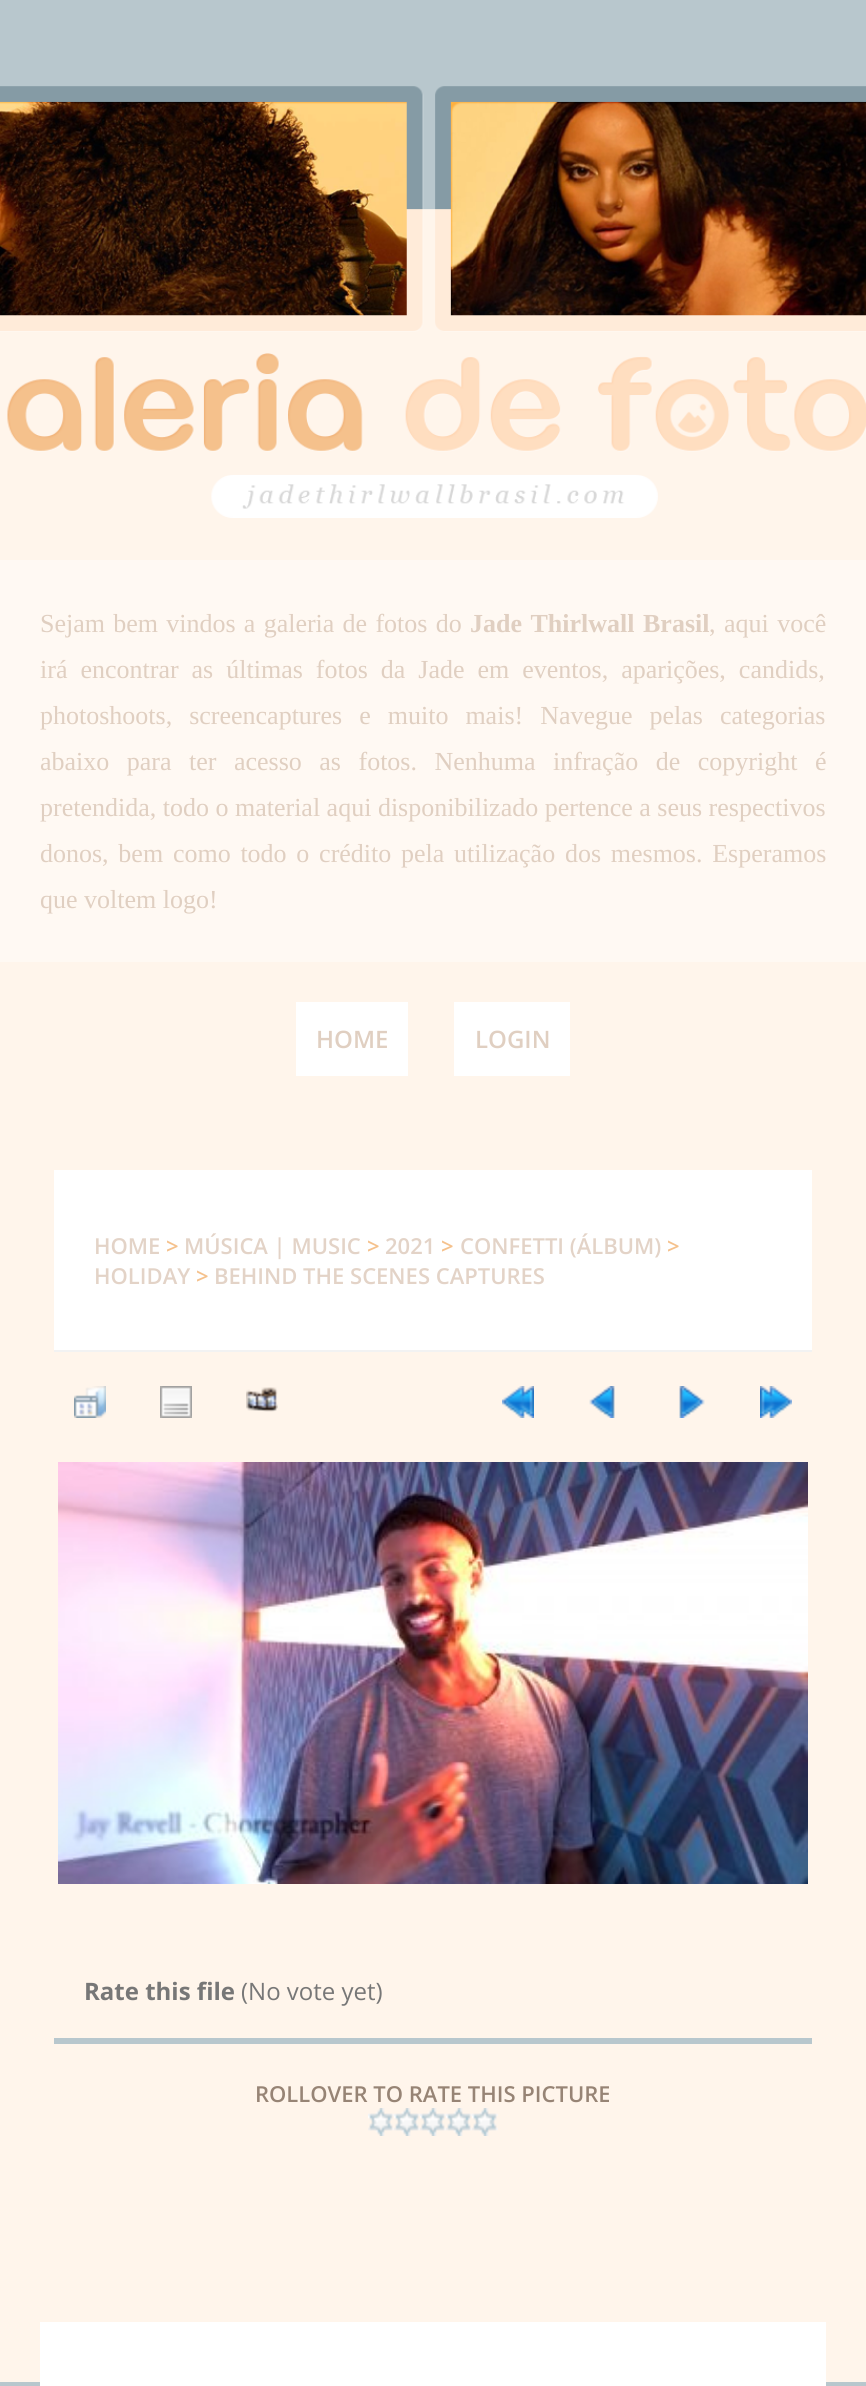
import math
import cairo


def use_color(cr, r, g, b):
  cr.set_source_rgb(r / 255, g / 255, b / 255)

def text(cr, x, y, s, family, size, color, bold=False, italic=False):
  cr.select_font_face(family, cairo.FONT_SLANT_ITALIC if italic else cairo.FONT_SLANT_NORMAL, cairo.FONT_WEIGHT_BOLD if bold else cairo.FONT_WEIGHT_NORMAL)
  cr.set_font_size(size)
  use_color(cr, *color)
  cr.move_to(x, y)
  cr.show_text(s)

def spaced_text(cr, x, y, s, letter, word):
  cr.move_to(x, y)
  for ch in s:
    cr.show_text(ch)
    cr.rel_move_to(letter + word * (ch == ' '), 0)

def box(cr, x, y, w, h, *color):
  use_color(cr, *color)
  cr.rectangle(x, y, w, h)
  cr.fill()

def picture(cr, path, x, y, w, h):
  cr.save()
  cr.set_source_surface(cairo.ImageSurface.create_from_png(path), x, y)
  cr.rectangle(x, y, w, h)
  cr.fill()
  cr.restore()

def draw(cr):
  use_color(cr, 255, 245, 235)
  cr.paint()
  picture(cr, "img_01.png", 0, 0, 866, 560)
  box(cr, 0, 560, 866, 402, 255, 249, 243)
  box(cr, 296, 1002, 112, 74, 255, 255, 255)
  box(cr, 454, 1002, 116, 74, 255, 255, 255)
  box(cr, 54, 1170, 758, 180, 255, 255, 255)
  box(cr, 54, 1350, 758, 2, 242, 242, 242)
  picture(cr, "img_02.png", 74, 1386, 32, 32)
  picture(cr, "img_03.png", 160, 1386, 32, 32)
  picture(cr, "img_04.png", 246, 1387, 32, 25)
  picture(cr, "img_05.png", 502, 1386, 32, 32)
  picture(cr, "img_06.png", 589, 1386, 26, 32)
  picture(cr, "img_07.png", 679, 1386, 26, 32)
  picture(cr, "img_08.png", 760, 1386, 32, 32)
  picture(cr, "img_09.png", 58, 1462, 750, 422)
  box(cr, 54, 2038, 758, 6, 184, 199, 205)
  picture(cr, "img_10.png", 368, 2108, 26, 28)
  picture(cr, "img_10.png", 394, 2108, 26, 28)
  picture(cr, "img_10.png", 420, 2108, 26, 28)
  picture(cr, "img_10.png", 446, 2108, 26, 28)
  picture(cr, "img_10.png", 472, 2108, 26, 28)
  box(cr, 0, 2382, 866, 4, 184, 199, 205)
  box(cr, 40, 2322, 786, 64, 255, 255, 255)
  cr.select_font_face("Liberation Serif")
  cr.set_font_size(26)
  use_color(cr, 224, 207, 193)
  spaced_text(cr, 40, 632, "Sejam bem vindos a galeria de fotos do", 0, 1.75)
  cr.select_font_face("Liberation Serif", cairo.FONT_SLANT_NORMAL, cairo.FONT_WEIGHT_BOLD)
  spaced_text(cr, 470, 632, "Jade Thirlwall Brasil", 0, 2)
  cr.select_font_face("Liberation Serif")
  spaced_text(cr, 709, 632, ", aqui você", 0, 2)
  spaced_text(cr, 40, 678, "irá encontrar as últimas fotos da Jade em eventos, aparições, candids,", 0, 6.5)
  spaced_text(cr, 40, 724, "photoshoots, screencaptures e muito mais! Navegue pelas categorias", 0, 10.5)
  spaced_text(cr, 40, 770, "abaixo para ter acesso as fotos. Nenhuma infração de copyright é", 0, 11)
  text(cr, 40, 816, "pretendida, todo o material aqui disponibilizado pertence a seus respectivos", "Liberation Serif", 26, (224, 207, 193))
  spaced_text(cr, 40, 862, "donos, bem como todo o crédito pela utilização dos mesmos. Esperamos", 0, 3.25)
  text(cr, 40, 908, "que voltem logo!", "Liberation Serif", 26, (224, 207, 193))
  text(cr, 316, 1048, "HOME", "Open Sans SemiBold", 24, (224, 207, 193))
  text(cr, 475, 1048, "LOGIN", "Open Sans SemiBold", 24, (224, 207, 193))
  text(cr, 94, 1254, "HOME", "Open Sans SemiBold", 22, (227, 211, 199))
  text(cr, 166, 1254, ">", "Open Sans SemiBold", 22, (245, 193, 140))
  text(cr, 184, 1254, "MÚSICA | MUSIC", "Open Sans SemiBold", 22, (227, 211, 199))
  text(cr, 367, 1254, ">", "Open Sans SemiBold", 22, (245, 193, 140))
  text(cr, 385, 1254, "2021", "Open Sans SemiBold", 22, (227, 211, 199))
  text(cr, 441, 1254, ">", "Open Sans SemiBold", 22, (245, 193, 140))
  text(cr, 460, 1254, "CONFETTI (ÁLBUM)", "Open Sans SemiBold", 22, (227, 211, 199))
  text(cr, 667, 1254, ">", "Open Sans SemiBold", 22, (245, 193, 140))
  text(cr, 94, 1284, "HOLIDAY", "Open Sans SemiBold", 22, (227, 211, 199))
  text(cr, 196, 1284, ">", "Open Sans SemiBold", 22, (245, 193, 140))
  text(cr, 214, 1284, "BEHIND THE SCENES CAPTURES", "Open Sans SemiBold", 22, (227, 211, 199))
  text(cr, 84, 2000, "Rate this file", "Open Sans", 24, (119, 119, 119), bold=True)
  text(cr, 241, 2000, "(No vote yet)", "Open Sans", 24, (119, 119, 119))
  text(cr, 255, 2102, "ROLLOVER TO RATE THIS PICTURE", "Open Sans SemiBold", 22, (151, 132, 117))


surface = cairo.ImageSurface(cairo.FORMAT_RGB24, 866, 2386)
cr = cairo.Context(surface)
options = cairo.FontOptions()
options.set_hint_metrics(cairo.HINT_METRICS_OFF)
options.set_hint_style(cairo.HINT_STYLE_NONE)
cr.set_font_options(options)
cr.set_miter_limit(4)
draw(cr)
surface.write_to_png("out.png")
